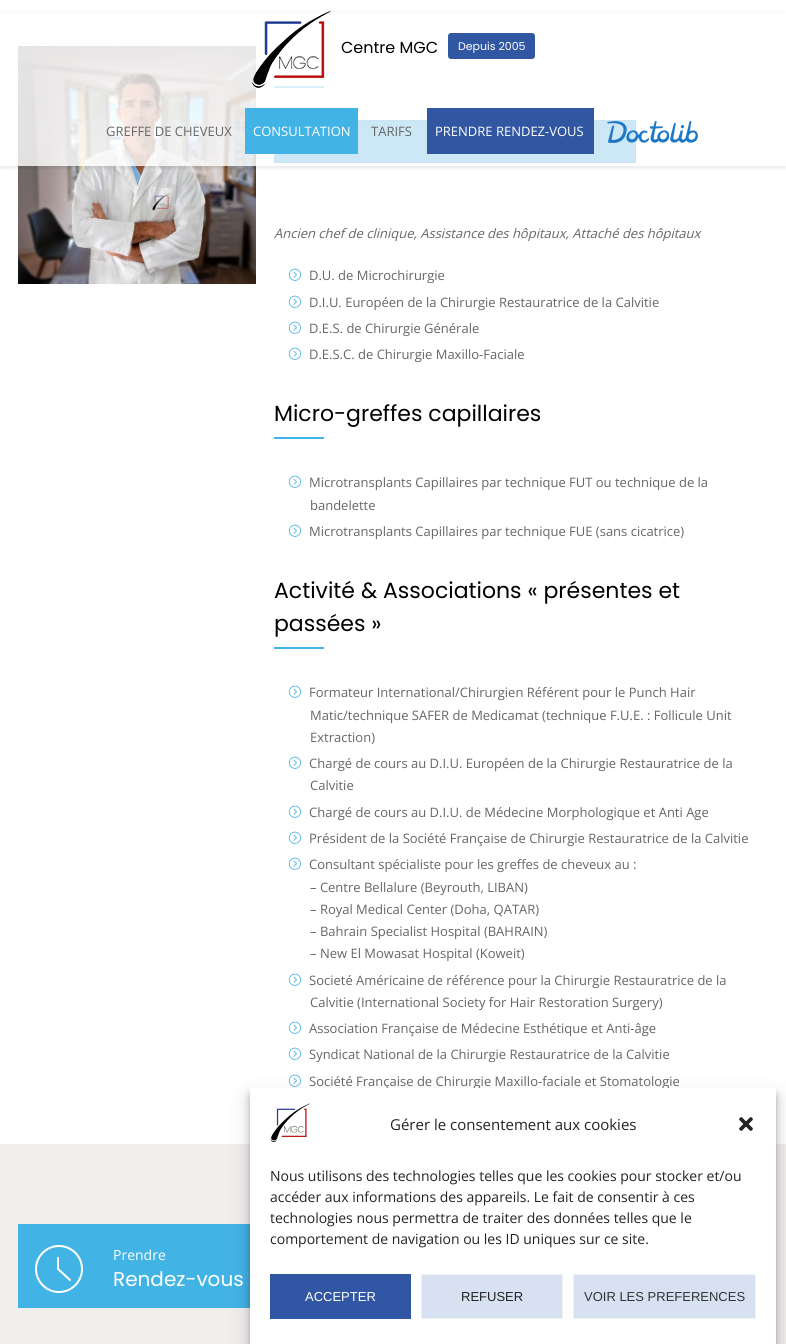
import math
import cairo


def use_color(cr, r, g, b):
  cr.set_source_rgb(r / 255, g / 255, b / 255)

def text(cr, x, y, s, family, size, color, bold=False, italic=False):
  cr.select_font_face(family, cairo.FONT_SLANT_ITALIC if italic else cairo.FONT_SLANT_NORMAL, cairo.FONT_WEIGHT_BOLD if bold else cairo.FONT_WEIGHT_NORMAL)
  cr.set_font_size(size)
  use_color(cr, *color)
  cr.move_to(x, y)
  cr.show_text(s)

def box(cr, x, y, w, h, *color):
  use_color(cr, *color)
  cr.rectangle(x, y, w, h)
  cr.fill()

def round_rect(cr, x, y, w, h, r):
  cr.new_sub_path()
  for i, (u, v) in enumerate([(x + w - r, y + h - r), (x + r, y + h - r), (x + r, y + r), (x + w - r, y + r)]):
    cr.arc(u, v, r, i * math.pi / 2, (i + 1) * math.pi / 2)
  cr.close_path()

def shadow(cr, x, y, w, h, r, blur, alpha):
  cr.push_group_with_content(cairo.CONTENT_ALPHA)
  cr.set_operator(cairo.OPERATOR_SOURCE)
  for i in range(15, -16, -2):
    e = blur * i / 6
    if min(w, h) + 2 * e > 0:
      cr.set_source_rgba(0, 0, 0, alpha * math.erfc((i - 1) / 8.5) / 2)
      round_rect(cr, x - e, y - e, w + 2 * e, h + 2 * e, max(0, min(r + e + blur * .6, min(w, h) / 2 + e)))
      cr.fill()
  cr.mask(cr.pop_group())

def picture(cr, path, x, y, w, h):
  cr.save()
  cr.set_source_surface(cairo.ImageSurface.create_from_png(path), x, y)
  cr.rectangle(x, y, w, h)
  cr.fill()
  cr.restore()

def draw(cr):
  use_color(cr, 255, 255, 255)
  cr.paint()
  cr.save()
  cr.rectangle(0, 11, 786, 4)
  cr.clip()
  use_color(cr, 0, 0, 0)
  shadow(cr, 0, -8, 786, 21, 0, 2.5, 0.1)
  cr.restore()
  picture(cr, "img_03.png", 18, 46, 238, 238)
  box(cr, 274, 86, 50, 2, 66, 179, 229)
  use_color(cr, 0, 136, 204)
  cr.rectangle(274.5, 120.5, 361, 42)
  cr.fill_preserve()
  use_color(cr, 0, 122, 184)
  cr.set_line_width(1)
  cr.stroke()
  cr.save()
  cr.rectangle(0, 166, 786, 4)
  cr.clip()
  use_color(cr, 0, 0, 0)
  shadow(cr, 0, 2, 786, 166, 0, 2.5, 0.1)
  cr.restore()
  cr.set_source_rgba(1, 1, 1, 0.8)
  cr.rectangle(0, 11, 786, 155)
  cr.fill()
  picture(cr, "img_01.png", 252, 10, 79, 78)
  use_color(cr, 49, 86, 162)
  round_rect(cr, 448, 33, 87, 26, 3)
  cr.fill()
  box(cr, 245, 108, 113, 46, 66, 179, 229)
  box(cr, 427, 108, 167, 46, 49, 86, 162)
  picture(cr, "img_02.png", 607, 121, 91, 22)
  picture(cr, "img_04.png", 288, 268, 13, 13)
  picture(cr, "img_04.png", 288, 295, 13, 13)
  picture(cr, "img_04.png", 288, 321, 13, 13)
  picture(cr, "img_04.png", 288, 347, 13, 13)
  box(cr, 274, 437, 50, 2, 66, 179, 229)
  picture(cr, "img_04.png", 288, 475, 13, 13)
  picture(cr, "img_04.png", 288, 524, 13, 13)
  box(cr, 274, 647, 50, 2, 66, 179, 229)
  picture(cr, "img_04.png", 288, 685, 13, 13)
  picture(cr, "img_04.png", 288, 756, 13, 13)
  picture(cr, "img_04.png", 288, 805, 13, 13)
  picture(cr, "img_04.png", 288, 831, 13, 13)
  picture(cr, "img_04.png", 288, 857, 13, 13)
  picture(cr, "img_04.png", 288, 973, 13, 13)
  picture(cr, "img_04.png", 288, 1021, 13, 13)
  picture(cr, "img_04.png", 288, 1047, 13, 13)
  picture(cr, "img_04.png", 288, 1074, 13, 13)
  box(cr, 0, 1144, 786, 200, 242, 238, 238)
  box(cr, 18, 1224, 232, 84, 66, 179, 229)
  picture(cr, "img_05.png", 35, 1245, 48, 48)
  use_color(cr, 0, 0, 0)
  shadow(cr, 250, 1094, 526, 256, 0, 3, 0.23)
  shadow(cr, 250, 1098, 526, 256, 0, 10, 0.19)
  text(cr, 341, 53, "Centre MGC", "Poppins", 16, (0, 0, 0))
  text(cr, 458, 50, "Depuis 2005", "Poppins", 11, (255, 255, 255))
  text(cr, 106, 136, "GREFFE DE CHEVEUX", "Open Sans", 13, (102, 102, 102))
  text(cr, 253, 136, "CONSULTATION", "Open Sans", 13, (255, 255, 255))
  text(cr, 371, 136, "TARIFS", "Open Sans", 13, (102, 102, 102))
  text(cr, 435, 136, "PRENDRE RENDEZ-VOUS", "Open Sans", 13, (255, 255, 255))
  text(cr, 274, 238, "Ancien chef de clinique, Assistance des hôpitaux, Attaché des hôpitaux", "Open Sans", 13, (102, 102, 102), italic=True)
  text(cr, 309, 280, "D.U. de Microchirurgie", "Open Sans", 13, (102, 102, 102))
  text(cr, 309, 307, "D.I.U. Européen de la Chirurgie Restauratrice de la Calvitie", "Open Sans", 13, (102, 102, 102))
  text(cr, 309, 333, "D.E.S. de Chirurgie Générale", "Open Sans", 13, (102, 102, 102))
  text(cr, 309, 359, "D.E.S.C. de Chirurgie Maxillo-Faciale", "Open Sans", 13, (102, 102, 102))
  text(cr, 274, 421, "Micro-greffes capillaires", "Poppins", 22, (0, 0, 0))
  text(cr, 309, 487, "Microtransplants Capillaires par technique FUT ou technique de la", "Open Sans", 13, (102, 102, 102))
  text(cr, 310, 510, "bandelette", "Open Sans", 13, (102, 102, 102))
  text(cr, 309, 536, "Microtransplants Capillaires par technique FUE (sans cicatrice)", "Open Sans", 13, (102, 102, 102))
  text(cr, 274, 598, "Activité & Associations « présentes et", "Poppins", 22, (0, 0, 0))
  text(cr, 274, 631, "passées »", "Poppins", 22, (0, 0, 0))
  text(cr, 309, 697, "Formateur International/Chirurgien Référent pour le Punch Hair", "Open Sans", 13, (102, 102, 102))
  text(cr, 310, 720, "Matic/technique SAFER de Medicamat (technique F.U.E. : Follicule Unit", "Open Sans", 13, (102, 102, 102))
  text(cr, 310, 742, "Extraction)", "Open Sans", 13, (102, 102, 102))
  text(cr, 309, 768, "Chargé de cours au D.I.U. Européen de la Chirurgie Restauratrice de la", "Open Sans", 13, (102, 102, 102))
  text(cr, 310, 790, "Calvitie", "Open Sans", 13, (102, 102, 102))
  text(cr, 309, 817, "Chargé de cours au D.I.U. de Médecine Morphologique et Anti Age", "Open Sans", 13, (102, 102, 102))
  text(cr, 309, 843, "Président de la Société Française de Chirurgie Restauratrice de la Calvitie", "Open Sans", 13, (102, 102, 102))
  text(cr, 309, 869, "Consultant spécialiste pour les greffes de cheveux au :", "Open Sans", 13, (102, 102, 102))
  text(cr, 310, 892, "– Centre Bellalure (Beyrouth, LIBAN)", "Open Sans", 13, (102, 102, 102))
  text(cr, 310, 914, "– Royal Medical Center (Doha, QATAR)", "Open Sans", 13, (102, 102, 102))
  text(cr, 310, 936, "– Bahrain Specialist Hospital (BAHRAIN)", "Open Sans", 13, (102, 102, 102))
  text(cr, 310, 958, "– New El Mowasat Hospital (Koweit)", "Open Sans", 13, (102, 102, 102))
  text(cr, 309, 985, "Societé Américaine de référence pour la Chirurgie Restauratrice de la", "Open Sans", 13, (102, 102, 102))
  text(cr, 310, 1007, "Calvitie (International Society for Hair Restoration Surgery)", "Open Sans", 13, (102, 102, 102))
  text(cr, 309, 1033, "Association Française de Médecine Esthétique et Anti-âge", "Open Sans", 13, (102, 102, 102))
  text(cr, 309, 1059, "Syndicat National de la Chirurgie Restauratrice de la Calvitie", "Open Sans", 13, (102, 102, 102))
  text(cr, 309, 1086, "Société Française de Chirurgie Maxillo-faciale et Stomatologie", "Open Sans", 13, (102, 102, 102))
  text(cr, 113, 1260, "Prendre", "Open Sans", 14, (255, 255, 255))
  text(cr, 113, 1286, "Rendez-vous", "Poppins", 20, (255, 255, 255))
  box(cr, 250, 1088, 526, 256, 255, 255, 255)
  picture(cr, "img_06.png", 270, 1103, 40, 39)
  text(cr, 390, 1130, "Gérer le consentement aux cookies", "Open Sans", 15, (34, 34, 34))
  picture(cr, "img_07.png", 739, 1117, 14, 14)
  text(cr, 270, 1181, "Nous utilisons des technologies telles que les cookies pour stocker et/ou", "Open Sans", 14, (34, 34, 34))
  text(cr, 270, 1202, "accéder aux informations des appareils. Le fait de consentir à ces", "Open Sans", 14, (34, 34, 34))
  text(cr, 270, 1223, "technologies nous permettra de traiter des données telles que le", "Open Sans", 14, (34, 34, 34))
  text(cr, 270, 1244, "comportement de navigation ou les ID uniques sur ce site.", "Open Sans", 14, (34, 34, 34))
  box(cr, 270, 1274, 141, 45, 49, 86, 163)
  text(cr, 305, 1301, "ACCEPTER", "Liberation Sans", 13, (255, 255, 255))
  use_color(cr, 215, 225, 242)
  cr.rectangle(421.5, 1274.5, 141, 44)
  cr.fill_preserve()
  use_color(cr, 242, 242, 242)
  cr.stroke()
  text(cr, 461, 1301, "REFUSER", "Liberation Sans", 13, (34, 34, 34))
  use_color(cr, 215, 225, 242)
  cr.rectangle(573.5, 1274.5, 182, 44)
  cr.fill_preserve()
  use_color(cr, 242, 242, 242)
  cr.stroke()
  text(cr, 584, 1301, "VOIR LES PREFERENCES", "Liberation Sans", 13, (51, 51, 51))


surface = cairo.ImageSurface(cairo.FORMAT_RGB24, 786, 1344)
cr = cairo.Context(surface)
options = cairo.FontOptions()
options.set_hint_metrics(cairo.HINT_METRICS_OFF)
options.set_hint_style(cairo.HINT_STYLE_NONE)
cr.set_font_options(options)
cr.set_miter_limit(4)
draw(cr)
surface.write_to_png("out.png")
